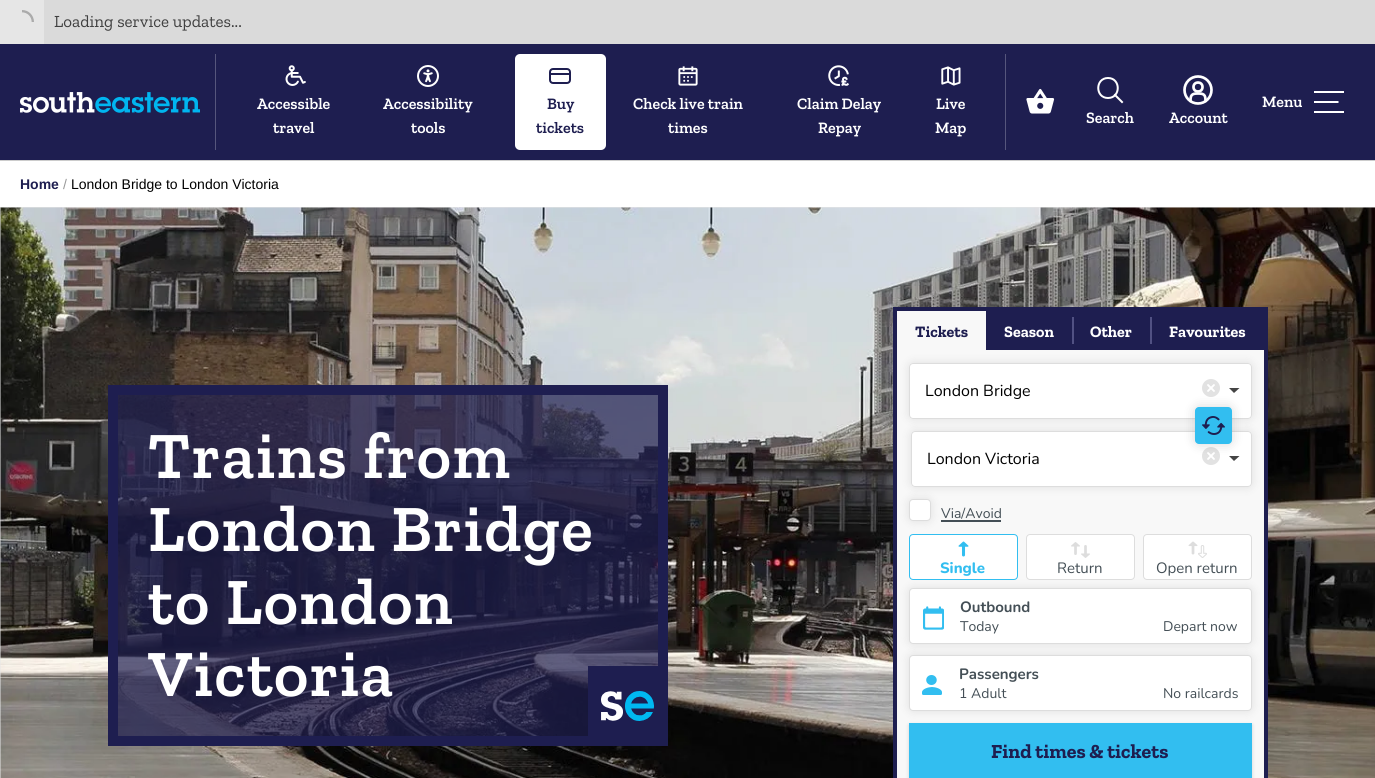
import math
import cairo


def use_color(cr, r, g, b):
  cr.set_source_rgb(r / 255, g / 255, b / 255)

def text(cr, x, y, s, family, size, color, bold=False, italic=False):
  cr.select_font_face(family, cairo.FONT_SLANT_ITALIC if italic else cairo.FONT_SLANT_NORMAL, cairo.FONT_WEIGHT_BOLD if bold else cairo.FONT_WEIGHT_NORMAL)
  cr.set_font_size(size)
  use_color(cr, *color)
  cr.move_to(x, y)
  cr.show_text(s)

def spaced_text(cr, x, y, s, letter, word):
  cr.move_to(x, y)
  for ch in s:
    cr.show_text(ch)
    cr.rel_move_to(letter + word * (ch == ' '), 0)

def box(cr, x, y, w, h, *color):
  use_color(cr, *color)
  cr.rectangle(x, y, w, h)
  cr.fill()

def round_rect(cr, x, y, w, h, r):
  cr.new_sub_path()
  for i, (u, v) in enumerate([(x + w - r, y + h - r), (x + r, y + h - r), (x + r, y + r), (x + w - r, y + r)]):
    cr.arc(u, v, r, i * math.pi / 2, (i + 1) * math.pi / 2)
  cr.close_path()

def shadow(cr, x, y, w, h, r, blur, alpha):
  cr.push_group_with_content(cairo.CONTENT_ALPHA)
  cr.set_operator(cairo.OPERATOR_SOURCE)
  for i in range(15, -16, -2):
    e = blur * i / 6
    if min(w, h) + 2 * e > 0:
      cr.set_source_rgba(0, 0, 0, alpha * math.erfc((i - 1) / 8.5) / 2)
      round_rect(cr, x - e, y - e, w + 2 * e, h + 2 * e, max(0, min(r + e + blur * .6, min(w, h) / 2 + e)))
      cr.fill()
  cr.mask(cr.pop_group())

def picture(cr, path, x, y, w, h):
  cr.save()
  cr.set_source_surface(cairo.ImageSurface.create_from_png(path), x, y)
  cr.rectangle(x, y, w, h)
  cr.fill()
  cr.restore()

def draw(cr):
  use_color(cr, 255, 255, 255)
  cr.paint()
  box(cr, 44, 0, 1331, 44, 218, 218, 218)
  box(cr, 0, 0, 44, 44, 230, 230, 230)
  picture(cr, "img_01.png", 22, 10, 12, 12)
  box(cr, 0, 44, 1375, 116, 30, 30, 80)
  picture(cr, "img_02.png", 20, 92, 180, 21)
  box(cr, 215, 54, 1, 96, 86, 86, 124)
  picture(cr, "img_03.png", 285, 65, 21, 21)
  picture(cr, "img_04.png", 417, 65, 22, 22)
  box(cr, 1005, 54, 1, 96, 86, 86, 124)
  use_color(cr, 255, 255, 255)
  round_rect(cr, 515, 54, 91, 96, 5)
  cr.fill()
  round_rect(cr, 550, 69, 20, 14, 3)
  use_color(cr, 30, 30, 80)
  cr.stroke()
  box(cr, 550, 73, 20, 2, 30, 30, 80)
  picture(cr, "img_05.png", 678, 66, 20, 20)
  picture(cr, "img_06.png", 828, 65, 21, 21)
  picture(cr, "img_07.png", 941, 66, 20, 20)
  picture(cr, "img_08.png", 1026, 88, 29, 26)
  cr.new_path()
  cr.move_to(1314, 92)
  cr.line_to(1344, 92)
  cr.move_to(1314, 112)
  cr.line_to(1344, 112)
  cr.move_to(1314, 102)
  cr.line_to(1338.5, 102)
  use_color(cr, 255, 255, 255)
  cr.stroke()
  cr.new_path()
  cr.move_to(1108, 98)
  cr.curve_to(1121, 98, 1121, 78, 1108, 78)
  cr.curve_to(1095, 78, 1095, 98, 1108, 98)
  cr.close_path()
  cr.set_line_cap(cairo.LINE_CAP_ROUND)
  cr.set_line_join(cairo.LINE_JOIN_ROUND)
  cr.stroke()
  cr.new_path()
  cr.move_to(1115, 95)
  cr.line_to(1122, 102)
  cr.set_line_cap(cairo.LINE_CAP_SQUARE)
  cr.stroke()
  cr.arc(1198, 90, 13.5, 0, 2 * math.pi)
  cr.set_line_width(2.7)
  cr.set_line_cap(cairo.LINE_CAP_BUTT)
  cr.set_line_join(cairo.LINE_JOIN_MITER)
  cr.stroke()
  cr.new_path()
  cr.move_to(1205.5, 101)
  cr.curve_to(1205.5, 94.5, 1204, 93.5, 1197.5, 93.5)
  cr.curve_to(1191.5, 93.5, 1190.5, 95.5, 1190.5, 101)
  cr.set_line_cap(cairo.LINE_CAP_ROUND)
  cr.stroke()
  cr.arc(1198, 87, 4.5, 0, 2 * math.pi)
  cr.set_line_cap(cairo.LINE_CAP_BUTT)
  cr.stroke()
  box(cr, 0, 160, 1375, 1, 204, 204, 204)
  box(cr, 0, 207, 1375, 571, 230, 230, 230)
  picture(cr, "img_09.png", 0, 207, 1375, 571)
  cr.set_source_rgba(0.118, 0.118, 0.314, 0.7)
  cr.rectangle(113, 390, 550, 351)
  cr.fill_preserve()
  use_color(cr, 30, 30, 80)
  cr.set_line_width(10)
  cr.stroke()
  box(cr, 588, 666, 70, 70, 30, 30, 80)
  picture(cr, "img_10.png", 601, 691, 53, 30)
  cr.rectangle(895, 309, 371, 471)
  cr.set_line_width(4)
  cr.stroke()
  box(cr, 986, 311, 278, 39, 30, 30, 80)
  box(cr, 897, 311, 89, 39, 248, 248, 248)
  box(cr, 1072, 317, 2, 27, 81, 81, 131)
  box(cr, 1150, 317, 2, 27, 81, 81, 131)
  box(cr, 897, 350, 367, 428, 248, 248, 248)
  use_color(cr, 0, 0, 0)
  shadow(cr, 909, 363, 343, 56, 4, 5, 0.1)
  use_color(cr, 255, 255, 255)
  round_rect(cr, 909, 363, 343, 56, 4)
  cr.fill()
  use_color(cr, 68, 68, 68)
  cr.new_path()
  cr.move_to(1239.5, 388)
  cr.line_to(1234, 393)
  cr.line_to(1229, 388)
  cr.line_to(1234, 388)
  cr.close_path()
  cr.fill()
  round_rect(cr, 909.5, 363.5, 342, 55, 3.5)
  use_color(cr, 221, 221, 221)
  cr.set_line_width(1)
  cr.stroke()
  picture(cr, "img_11.png", 1202, 379, 18, 18)
  use_color(cr, 0, 0, 0)
  shadow(cr, 911, 431, 341, 56, 4, 5, 0.1)
  use_color(cr, 255, 255, 255)
  round_rect(cr, 911, 431, 341, 56, 4)
  cr.fill()
  use_color(cr, 68, 68, 68)
  cr.new_path()
  cr.move_to(1239.5, 456)
  cr.line_to(1234, 461)
  cr.line_to(1229, 456)
  cr.line_to(1234, 456)
  cr.close_path()
  cr.fill()
  round_rect(cr, 911.5, 431.5, 340, 55, 3.5)
  use_color(cr, 221, 221, 221)
  cr.stroke()
  picture(cr, "img_11.png", 1202, 447, 18, 18)
  use_color(cr, 0, 0, 0)
  shadow(cr, 1195, 407, 37, 37, 4, 6, 0.15)
  use_color(cr, 50, 190, 240)
  round_rect(cr, 1195, 407, 37, 37, 4)
  cr.fill()
  picture(cr, "img_12.png", 1202, 416, 23, 19)
  box(cr, 941, 520, 60, 2, 68, 79, 86)
  use_color(cr, 0, 0, 0)
  shadow(cr, 909, 499, 22, 22, 4, 5, 0.1)
  use_color(cr, 255, 255, 255)
  round_rect(cr, 909.5, 499.5, 21, 21, 3.5)
  cr.fill_preserve()
  use_color(cr, 221, 221, 221)
  cr.stroke()
  use_color(cr, 0, 0, 0)
  shadow(cr, 909, 588, 343, 56, 4, 5, 0.1)
  use_color(cr, 255, 255, 255)
  round_rect(cr, 909.5, 534.5, 108, 45, 3.5)
  cr.fill_preserve()
  use_color(cr, 50, 190, 240)
  cr.stroke()
  picture(cr, "img_13.png", 958, 541, 11, 16)
  use_color(cr, 255, 255, 255)
  round_rect(cr, 1026.5, 534.5, 108, 45, 3.5)
  cr.fill_preserve()
  use_color(cr, 221, 221, 221)
  cr.stroke()
  picture(cr, "img_14.png", 1071, 542, 19, 16)
  use_color(cr, 255, 255, 255)
  round_rect(cr, 1143.5, 534.5, 108, 45, 3.5)
  cr.fill_preserve()
  use_color(cr, 221, 221, 221)
  cr.stroke()
  picture(cr, "img_15.png", 1188, 541, 19, 17)
  use_color(cr, 255, 255, 255)
  round_rect(cr, 909.5, 588.5, 342, 55, 3.5)
  cr.fill_preserve()
  use_color(cr, 221, 221, 221)
  cr.stroke()
  picture(cr, "img_16.png", 923, 606, 21, 24)
  use_color(cr, 0, 0, 0)
  shadow(cr, 909, 725, 343, 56, 0, 2, 0.15)
  box(cr, 909, 723, 343, 55, 50, 190, 240)
  use_color(cr, 0, 0, 0)
  shadow(cr, 909, 655, 343, 56, 4, 5, 0.1)
  use_color(cr, 255, 255, 255)
  round_rect(cr, 909.5, 655.5, 342, 55, 3.5)
  cr.fill_preserve()
  use_color(cr, 221, 221, 221)
  cr.stroke()
  picture(cr, "img_17.png", 922, 675, 20, 20)
  text(cr, 54, 27, "Loading service updates...", "Zilla Slab", 17, (64, 64, 64))
  text(cr, 257, 109, "Accessible", "Zilla Slab SemiBold", 16, (255, 255, 255))
  text(cr, 273, 133, "travel", "Zilla Slab SemiBold", 16, (255, 255, 255))
  text(cr, 383, 109, "Accessibility", "Zilla Slab SemiBold", 16, (255, 255, 255))
  text(cr, 411, 133, "tools", "Zilla Slab SemiBold", 16, (255, 255, 255))
  text(cr, 547, 109, "Buy", "Zilla Slab SemiBold", 16, (30, 30, 80))
  text(cr, 536, 133, "tickets", "Zilla Slab SemiBold", 16, (30, 30, 80))
  text(cr, 633, 109, "Check live train", "Zilla Slab SemiBold", 16, (255, 255, 255))
  text(cr, 668, 133, "times", "Zilla Slab SemiBold", 16, (255, 255, 255))
  text(cr, 797, 109, "Claim Delay", "Zilla Slab SemiBold", 16, (255, 255, 255))
  text(cr, 818, 133, "Repay", "Zilla Slab SemiBold", 16, (255, 255, 255))
  text(cr, 936, 109, "Live", "Zilla Slab SemiBold", 16, (255, 255, 255))
  text(cr, 935, 133, "Map", "Zilla Slab SemiBold", 16, (255, 255, 255))
  text(cr, 1262, 107, "Menu", "Zilla Slab SemiBold", 16, (255, 255, 255))
  text(cr, 1086, 123, "Search", "Zilla Slab SemiBold", 16, (255, 255, 255))
  text(cr, 1169, 123, "Account", "Zilla Slab SemiBold", 16, (255, 255, 255))
  text(cr, 20, 189, "Home", "Liberation Sans", 14, (30, 30, 80), bold=True)
  text(cr, 63, 189, "/", "Liberation Sans", 14, (153, 153, 153))
  text(cr, 71, 189, "London Bridge to London Victoria", "Liberation Sans", 14, (0, 0, 0))
  cr.select_font_face("Zilla Slab SemiBold")
  cr.set_font_size(66)
  use_color(cr, 255, 255, 255)
  spaced_text(cr, 148, 478, "Trains from", 1.5, 0)
  spaced_text(cr, 148, 551, "London Bridge", 1.5, 0)
  spaced_text(cr, 148, 624, "to London", 1.5, 0)
  spaced_text(cr, 148, 696, "Victoria", 1.5, 0)
  text(cr, 915, 337, "Tickets", "Zilla Slab", 16, (30, 30, 80), bold=True)
  text(cr, 1004, 337, "Season", "Zilla Slab", 16, (255, 255, 255), bold=True)
  text(cr, 1090, 337, "Other", "Zilla Slab", 16, (255, 255, 255), bold=True)
  text(cr, 1169, 337, "Favourites", "Zilla Slab", 16, (255, 255, 255), bold=True)
  text(cr, 925, 396, "London Bridge", "Nunito", 16, (0, 0, 0))
  text(cr, 927, 464, "London Victoria", "Nunito", 16, (0, 0, 0))
  text(cr, 941, 518, "Via/Avoid", "Nunito", 14, (68, 79, 86))
  text(cr, 940, 573, "Single", "Nunito ExtraBold", 15, (50, 190, 240))
  text(cr, 1057, 573, "Return", "Nunito", 15, (68, 79, 86))
  text(cr, 1156, 573, "Open return", "Nunito", 15, (68, 79, 86))
  text(cr, 960, 612, "Outbound", "Nunito", 15, (68, 79, 86), bold=True)
  text(cr, 960, 631, "Today", "Nunito", 14, (68, 79, 86))
  text(cr, 1163, 631, "Depart now", "Nunito", 14, (68, 79, 86))
  text(cr, 959, 679, "Passengers", "Nunito", 15, (68, 79, 86), bold=True)
  text(cr, 959, 698, "1 Adult", "Nunito", 14, (68, 79, 86))
  text(cr, 1163, 698, "No railcards", "Nunito", 14, (68, 79, 86))
  text(cr, 991, 758, "Find times & tickets", "Zilla Slab", 20, (30, 30, 80), bold=True)


surface = cairo.ImageSurface(cairo.FORMAT_RGB24, 1375, 778)
cr = cairo.Context(surface)
options = cairo.FontOptions()
options.set_hint_metrics(cairo.HINT_METRICS_OFF)
options.set_hint_style(cairo.HINT_STYLE_NONE)
cr.set_font_options(options)
cr.set_miter_limit(4)
draw(cr)
surface.write_to_png("out.png")
